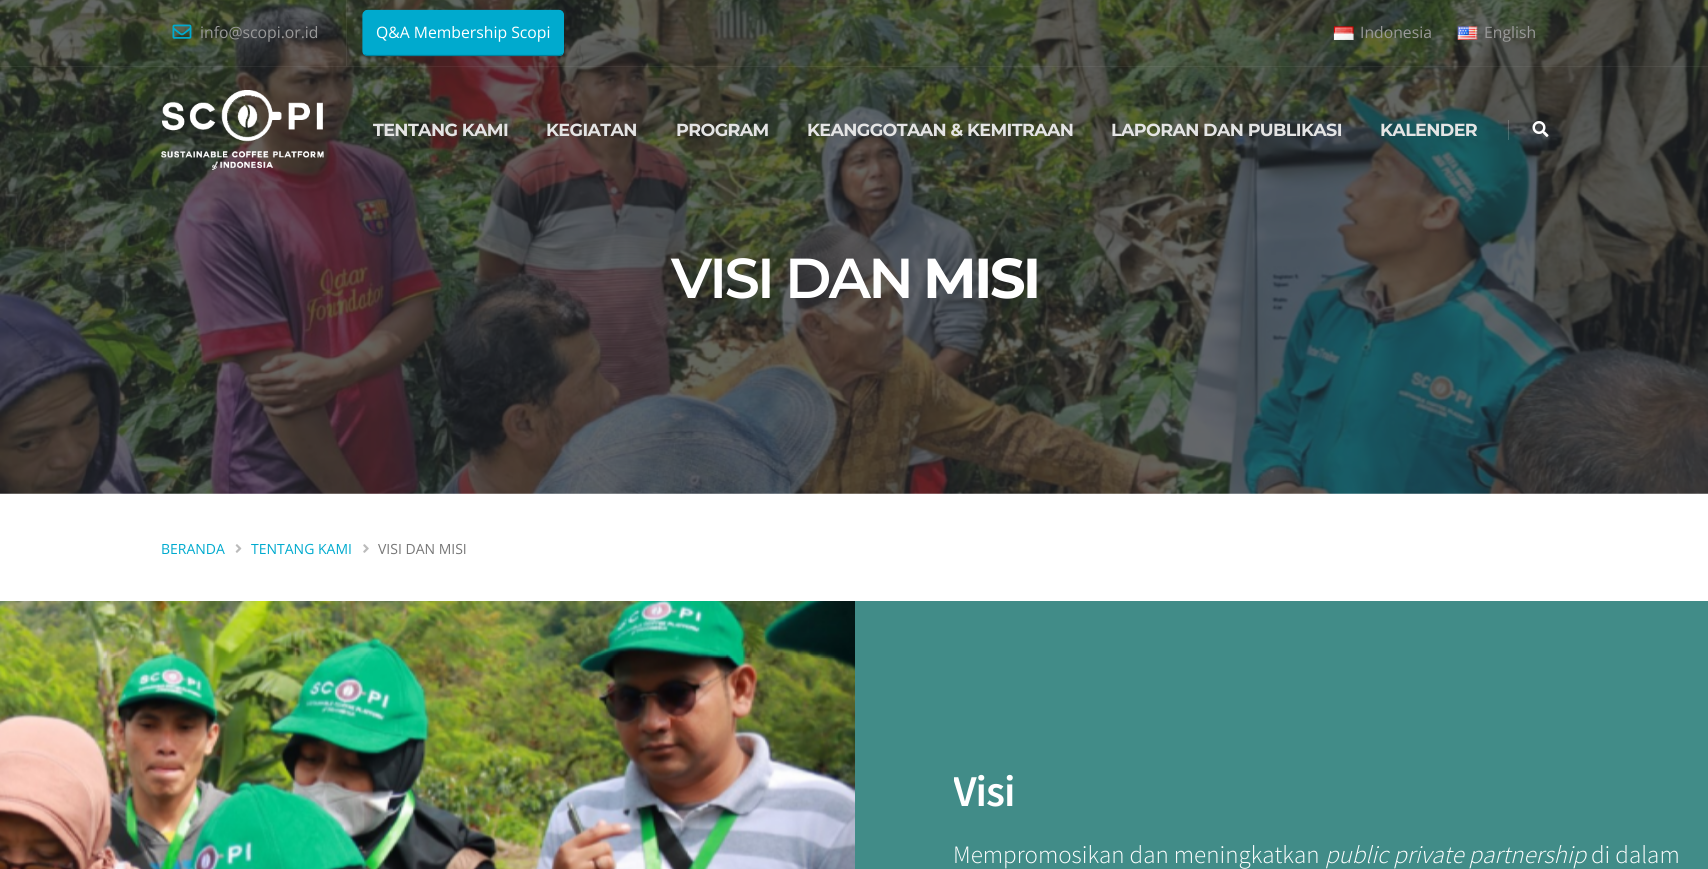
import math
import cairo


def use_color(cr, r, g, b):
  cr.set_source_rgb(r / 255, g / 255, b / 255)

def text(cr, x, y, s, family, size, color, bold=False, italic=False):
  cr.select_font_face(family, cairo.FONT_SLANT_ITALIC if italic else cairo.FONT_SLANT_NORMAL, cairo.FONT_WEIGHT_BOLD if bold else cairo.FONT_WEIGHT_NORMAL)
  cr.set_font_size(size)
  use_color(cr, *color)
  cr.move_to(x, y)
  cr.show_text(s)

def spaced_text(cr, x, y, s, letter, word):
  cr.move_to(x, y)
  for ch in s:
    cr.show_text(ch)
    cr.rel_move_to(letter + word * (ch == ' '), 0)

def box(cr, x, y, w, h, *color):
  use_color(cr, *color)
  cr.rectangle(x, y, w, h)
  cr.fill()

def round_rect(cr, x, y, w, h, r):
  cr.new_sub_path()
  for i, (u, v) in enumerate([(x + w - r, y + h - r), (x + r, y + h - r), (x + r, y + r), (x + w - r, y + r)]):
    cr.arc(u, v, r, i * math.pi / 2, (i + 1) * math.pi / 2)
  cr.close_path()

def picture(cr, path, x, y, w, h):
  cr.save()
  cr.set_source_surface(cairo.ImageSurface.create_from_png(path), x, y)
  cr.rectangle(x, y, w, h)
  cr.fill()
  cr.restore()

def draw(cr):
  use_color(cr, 255, 255, 255)
  cr.paint()
  picture(cr, "img_06.png", 0, 0, 1708, 494)
  cr.set_source_rgba(1, 1, 1, 0.06)
  cr.rectangle(0, 66, 1708, 1)
  cr.fill()
  cr.rectangle(346, 0, 1, 66)
  cr.fill()
  picture(cr, "img_01.png", 172, 24, 20, 15)
  use_color(cr, 0, 170, 206)
  round_rect(cr, 363, 10, 201, 46, 5)
  cr.fill()
  cr.new_path()
  cr.move_to(562, 54.5)
  cr.curve_to(561, 55, 560, 55.5, 559, 55.5)
  cr.line_to(367.5, 55.5)
  cr.curve_to(366.5, 55.5, 365, 55, 364.5, 54.5)
  use_color(cr, 0, 128, 155)
  cr.set_line_width(1.2)
  cr.stroke()
  cr.new_path()
  cr.move_to(364.5, 54.5)
  cr.curve_to(363.5, 53.5, 363, 52.5, 363, 51)
  cr.line_to(363, 15)
  cr.curve_to(363, 14, 363.5, 12.5, 364.5, 12)
  cr.curve_to(365, 11, 366.5, 10.5, 367.5, 10.5)
  cr.line_to(559, 10.5)
  cr.curve_to(560, 10.5, 561, 11, 562, 12)
  cr.curve_to(562.5, 12.5, 563, 14, 563, 15)
  cr.line_to(563, 51)
  cr.curve_to(563, 52.5, 562.5, 53.5, 562, 54.5)
  use_color(cr, 0, 170, 206)
  cr.stroke()
  picture(cr, "img_02.png", 1333, 26, 21, 14)
  picture(cr, "img_03.png", 1457, 26, 21, 14)
  picture(cr, "img_04.png", 161, 90, 163, 80)
  cr.set_source_rgba(1, 1, 1, 0.1)
  cr.rectangle(1508, 120, 1, 20)
  cr.fill()
  cr.rectangle(1508, 120, 1, 20)
  cr.fill()
  picture(cr, "img_05.png", 1532, 121, 17, 16)
  picture(cr, "img_07.png", 235, 544, 7, 9)
  picture(cr, "img_08.png", 363, 544, 6, 9)
  picture(cr, "img_09.png", 0, 601, 855, 268)
  box(cr, 855, 601, 853, 268, 65, 140, 136)
  text(cr, 200, 38, "info@scopi.or.id", "Open Sans", 15.75, (153, 153, 153))
  text(cr, 376, 38, "Q&A Membership Scopi", "Open Sans", 15.75, (255, 255, 255))
  text(cr, 1360, 38, "Indonesia", "Open Sans", 15.75, (153, 153, 153))
  text(cr, 1484, 38, "English", "Open Sans", 15.75, (153, 153, 153))
  cr.select_font_face("Montserrat", cairo.FONT_SLANT_NORMAL, cairo.FONT_WEIGHT_BOLD)
  cr.set_font_size(17.5)
  use_color(cr, 228, 228, 228)
  spaced_text(cr, 373, 136, "TENTANG KAMI", -0.6, 0)
  spaced_text(cr, 546, 136, "KEGIATAN", -0.6, 0)
  spaced_text(cr, 676, 136, "PROGRAM", -0.6, 0)
  spaced_text(cr, 807, 136, "KEANGGOTAAN & KEMITRAAN", -0.6, 0)
  spaced_text(cr, 1111, 136, "LAPORAN DAN PUBLIKASI", -0.6, 0)
  spaced_text(cr, 1380, 136, "KALENDER", -0.6, 0)
  cr.select_font_face("Montserrat SemiBold")
  cr.set_font_size(56.25)
  use_color(cr, 255, 255, 255)
  spaced_text(cr, 671, 298, "VISI DAN", -2.75, 0)
  cr.select_font_face("Montserrat", cairo.FONT_SLANT_NORMAL, cairo.FONT_WEIGHT_BOLD)
  spaced_text(cr, 923, 298, "MISI", -2.75, 0)
  text(cr, 161, 554, "BERANDA", "Open Sans", 14, (0, 170, 206))
  text(cr, 251, 554, "TENTANG KAMI", "Open Sans", 14, (0, 170, 206))
  text(cr, 378, 554, "VISI DAN MISI", "Open Sans", 14, (119, 119, 119))
  cr.save()
  cr.rectangle(954, 764, 736, 69)
  cr.clip()
  cr.select_font_face("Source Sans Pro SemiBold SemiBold")
  cr.set_font_size(44)
  use_color(cr, 255, 255, 255)
  spaced_text(cr, 953, 806, "Visi", -1, 0)
  cr.restore()
  text(cr, 953, 863, "Mempromosikan dan meningkatkan", "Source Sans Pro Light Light", 25, (255, 255, 255))
  text(cr, 1325, 863, "public private partnership", "Source Sans Pro Light Light", 25, (255, 255, 255), italic=True)
  text(cr, 1591, 863, "di dalam", "Source Sans Pro Light Light", 25, (255, 255, 255))


surface = cairo.ImageSurface(cairo.FORMAT_RGB24, 1708, 869)
cr = cairo.Context(surface)
options = cairo.FontOptions()
options.set_hint_metrics(cairo.HINT_METRICS_OFF)
options.set_hint_style(cairo.HINT_STYLE_NONE)
cr.set_font_options(options)
cr.set_miter_limit(4)
draw(cr)
surface.write_to_png("out.png")
